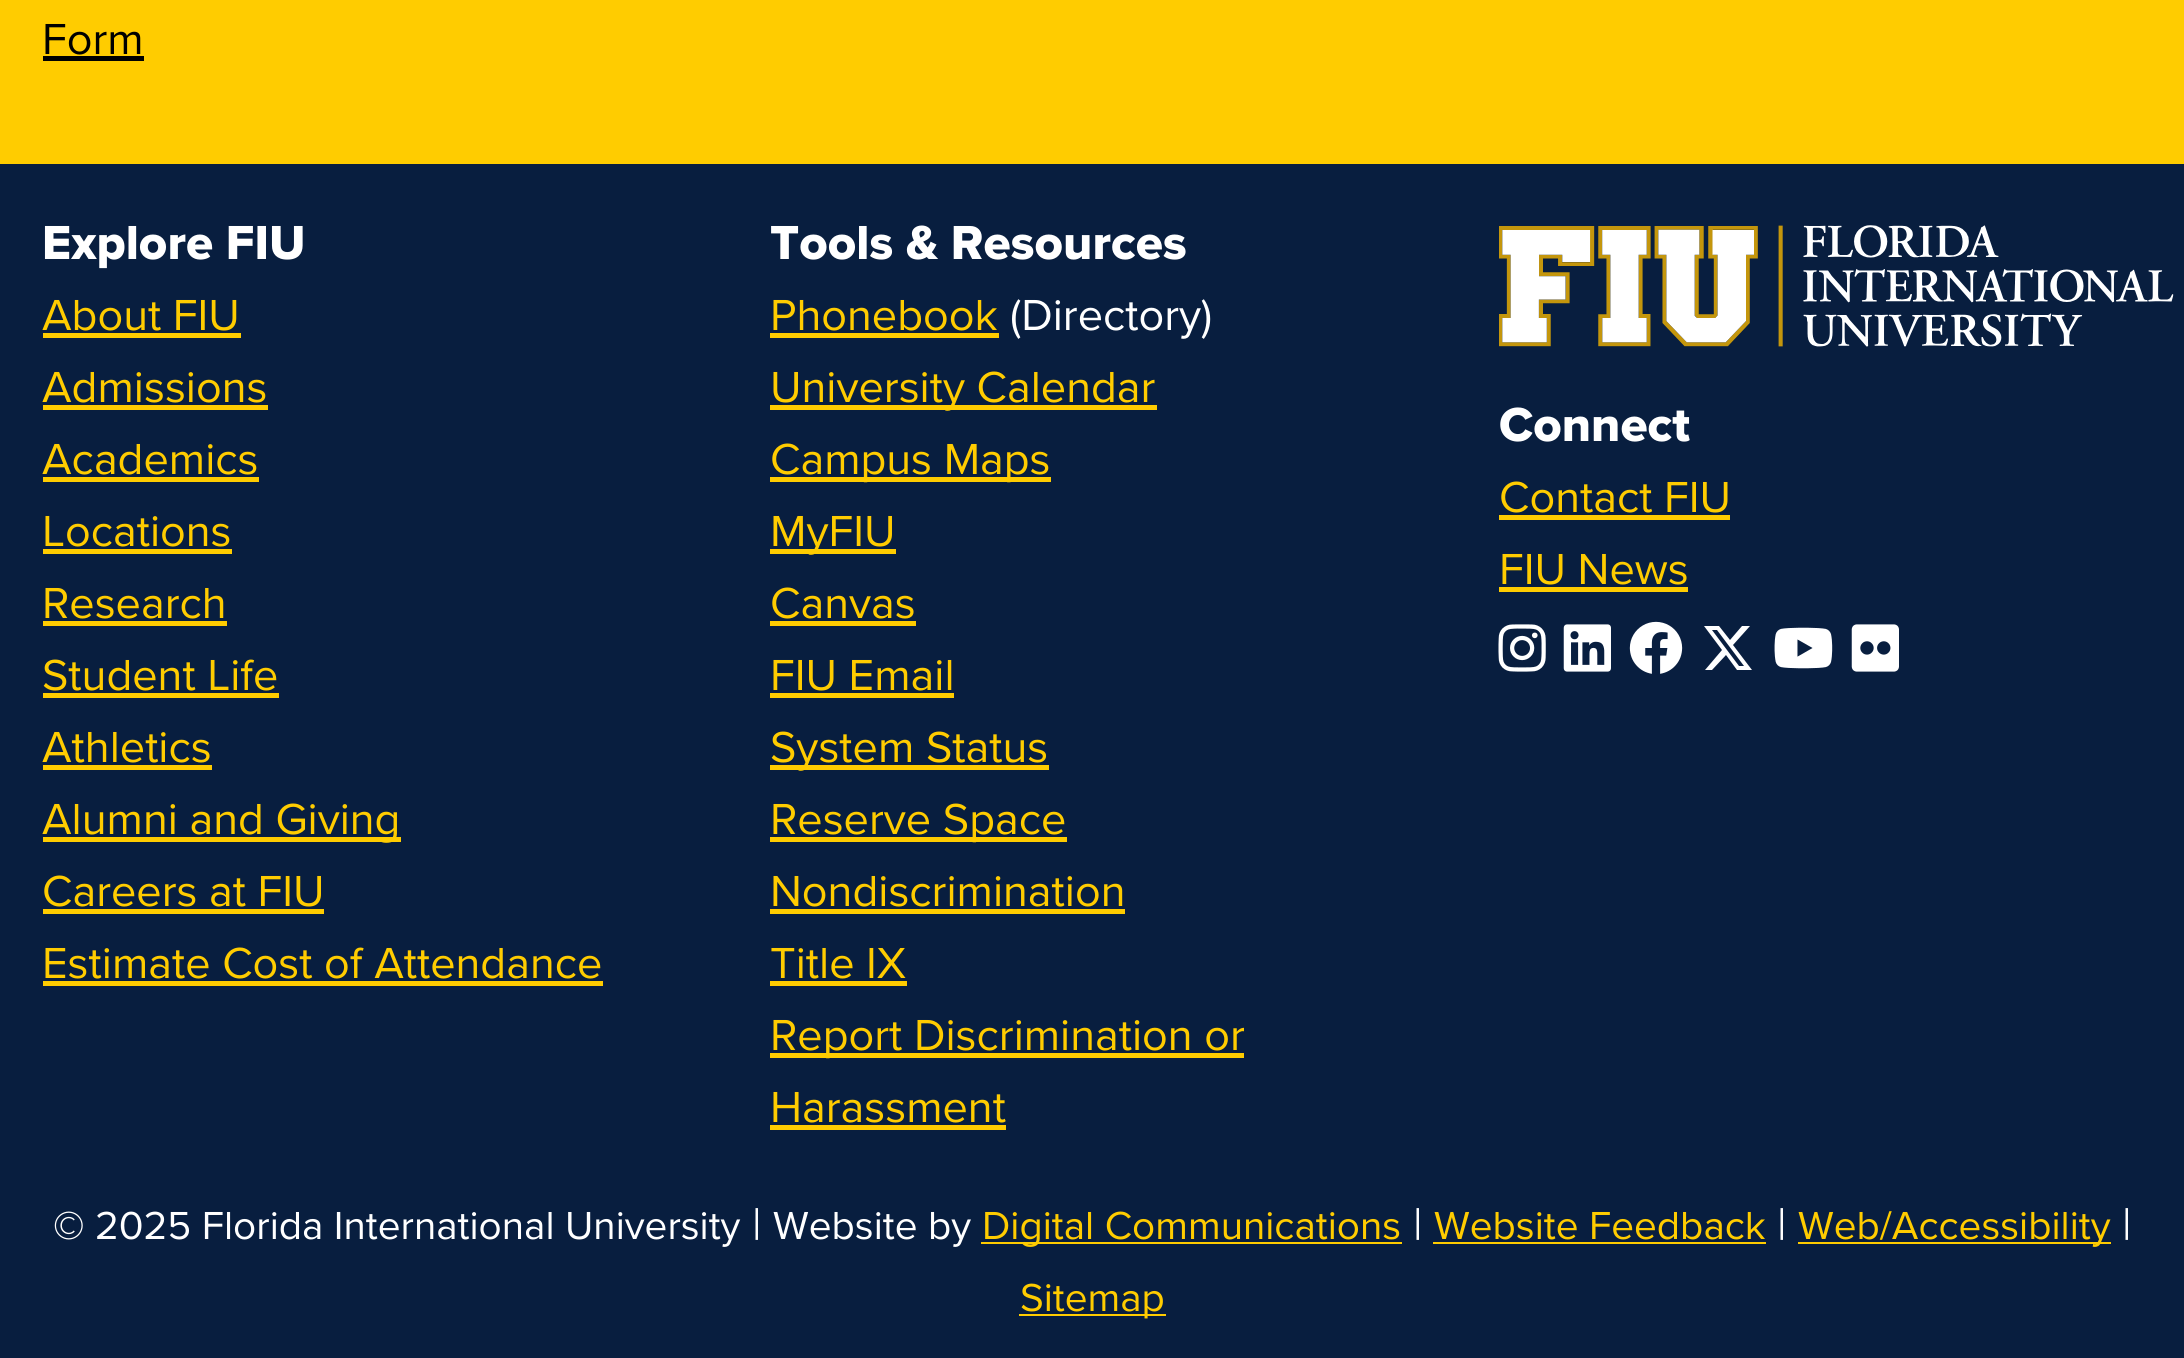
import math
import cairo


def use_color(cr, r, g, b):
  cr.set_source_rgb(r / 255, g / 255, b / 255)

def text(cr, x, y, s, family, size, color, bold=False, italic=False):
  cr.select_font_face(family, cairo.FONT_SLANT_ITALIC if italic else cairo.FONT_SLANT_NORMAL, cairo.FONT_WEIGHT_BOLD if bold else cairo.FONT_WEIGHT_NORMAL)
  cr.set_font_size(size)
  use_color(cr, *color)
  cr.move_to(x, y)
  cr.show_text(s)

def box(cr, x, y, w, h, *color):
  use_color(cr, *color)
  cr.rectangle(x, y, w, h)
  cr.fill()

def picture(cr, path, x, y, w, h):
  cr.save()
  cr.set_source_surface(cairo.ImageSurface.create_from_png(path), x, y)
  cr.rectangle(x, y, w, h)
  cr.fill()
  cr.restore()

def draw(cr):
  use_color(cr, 8, 30, 63)
  cr.paint()
  box(cr, 0, 0, 2184, 164, 255, 204, 0)
  box(cr, 43, 56, 101, 5, 0, 0, 0)
  box(cr, 43, 333, 198, 5, 255, 204, 0)
  box(cr, 43, 405, 225, 5, 255, 204, 0)
  box(cr, 43, 477, 216, 5, 255, 204, 0)
  box(cr, 43, 549, 189, 5, 255, 204, 0)
  box(cr, 43, 621, 184, 5, 255, 204, 0)
  box(cr, 43, 693, 236, 5, 255, 204, 0)
  box(cr, 43, 765, 169, 5, 255, 204, 0)
  box(cr, 43, 837, 358, 5, 255, 204, 0)
  box(cr, 43, 909, 281, 5, 255, 204, 0)
  box(cr, 43, 981, 560, 5, 255, 204, 0)
  box(cr, 770, 333, 229, 5, 255, 204, 0)
  box(cr, 770, 405, 387, 5, 255, 204, 0)
  box(cr, 770, 477, 281, 5, 255, 204, 0)
  box(cr, 770, 549, 126, 5, 255, 204, 0)
  box(cr, 770, 621, 146, 5, 255, 204, 0)
  box(cr, 770, 693, 184, 5, 255, 204, 0)
  box(cr, 770, 765, 279, 5, 255, 204, 0)
  box(cr, 770, 837, 297, 5, 255, 204, 0)
  box(cr, 770, 909, 355, 5, 255, 204, 0)
  box(cr, 770, 981, 137, 5, 255, 204, 0)
  box(cr, 770, 1053, 474, 5, 255, 204, 0)
  box(cr, 770, 1125, 236, 5, 255, 204, 0)
  picture(cr, "img_01.png", 1499, 225, 675, 122)
  box(cr, 1499, 515, 231, 5, 255, 204, 0)
  box(cr, 1499, 587, 189, 5, 255, 204, 0)
  picture(cr, "img_02.png", 1498, 624, 48, 48)
  picture(cr, "img_03.png", 1563, 624, 48, 48)
  picture(cr, "img_04.png", 1629, 621, 54, 53)
  use_color(cr, 255, 255, 255)
  cr.new_path()
  cr.move_to(1742, 626)
  cr.line_to(1750, 626)
  cr.line_to(1733, 645)
  cr.line_to(1752, 670)
  cr.line_to(1737, 670)
  cr.line_to(1726, 655)
  cr.line_to(1712, 670)
  cr.line_to(1705, 670)
  cr.line_to(1722, 650)
  cr.line_to(1704, 626)
  cr.line_to(1719, 626)
  cr.line_to(1730, 640)
  cr.close_path()
  cr.move_to(1739, 666)
  cr.line_to(1744, 666)
  cr.line_to(1717, 630)
  cr.line_to(1712, 630)
  cr.close_path()
  cr.fill()
  picture(cr, "img_05.png", 1774, 627, 59, 42)
  picture(cr, "img_06.png", 1851, 624, 48, 48)
  box(cr, 981, 1242, 421, 2, 255, 204, 0)
  box(cr, 1433, 1242, 333, 2, 255, 204, 0)
  box(cr, 1798, 1242, 313, 2, 255, 204, 0)
  box(cr, 1019, 1314, 147, 2, 255, 204, 0)
  text(cr, 42, 54, "Form", "Proxima Nova", 45, (0, 0, 0))
  text(cr, 42, 259, "Explore FIU", "Proxima Nova ExtraBold", 49.5, (255, 255, 255))
  text(cr, 42, 330, "About FIU", "Proxima Nova", 45, (255, 204, 0))
  text(cr, 42, 402, "Admissions", "Proxima Nova", 45, (255, 204, 0))
  text(cr, 42, 474, "Academics", "Proxima Nova", 45, (255, 204, 0))
  text(cr, 42, 546, "Locations", "Proxima Nova", 45, (255, 204, 0))
  text(cr, 42, 618, "Research", "Proxima Nova", 45, (255, 204, 0))
  text(cr, 42, 690, "Student Life", "Proxima Nova", 45, (255, 204, 0))
  text(cr, 42, 762, "Athletics", "Proxima Nova", 45, (255, 204, 0))
  text(cr, 42, 834, "Alumni and Giving", "Proxima Nova", 45, (255, 204, 0))
  text(cr, 42, 906, "Careers at FIU", "Proxima Nova", 45, (255, 204, 0))
  text(cr, 42, 978, "Estimate Cost of Attendance", "Proxima Nova", 45, (255, 204, 0))
  text(cr, 770, 259, "Tools & Resources", "Proxima Nova ExtraBold", 49.5, (255, 255, 255))
  text(cr, 770, 330, "Phonebook", "Proxima Nova", 45, (255, 204, 0))
  text(cr, 1010, 330, "(Directory)", "Proxima Nova", 45, (255, 255, 255))
  text(cr, 770, 402, "University Calendar", "Proxima Nova", 45, (255, 204, 0))
  text(cr, 770, 474, "Campus Maps", "Proxima Nova", 45, (255, 204, 0))
  text(cr, 770, 546, "MyFIU", "Proxima Nova", 45, (255, 204, 0))
  text(cr, 770, 618, "Canvas", "Proxima Nova", 45, (255, 204, 0))
  text(cr, 770, 690, "FIU Email", "Proxima Nova", 45, (255, 204, 0))
  text(cr, 770, 762, "System Status", "Proxima Nova", 45, (255, 204, 0))
  text(cr, 770, 834, "Reserve Space", "Proxima Nova", 45, (255, 204, 0))
  text(cr, 770, 906, "Nondiscrimination", "Proxima Nova", 45, (255, 204, 0))
  text(cr, 770, 978, "Title IX", "Proxima Nova", 45, (255, 204, 0))
  text(cr, 770, 1050, "Report Discrimination or", "Proxima Nova", 45, (255, 204, 0))
  text(cr, 770, 1122, "Harassment", "Proxima Nova", 45, (255, 204, 0))
  text(cr, 1499, 441, "Connect", "Proxima Nova ExtraBold", 49.5, (255, 255, 255))
  text(cr, 1499, 512, "Contact FIU", "Proxima Nova", 45, (255, 204, 0))
  text(cr, 1499, 584, "FIU News", "Proxima Nova", 45, (255, 204, 0))
  text(cr, 53, 1239, "© 2025 Florida International University", "Proxima Nova", 40.5, (255, 255, 255))
  text(cr, 752, 1239, "|", "Proxima Nova", 45, (255, 255, 255))
  text(cr, 773, 1239, "Website by", "Proxima Nova", 40.5, (255, 255, 255))
  text(cr, 982, 1239, "Digital Communications", "Proxima Nova", 40.5, (255, 204, 0))
  text(cr, 1413, 1239, "|", "Proxima Nova", 45, (255, 255, 255))
  text(cr, 1434, 1239, "Website Feedback", "Proxima Nova", 40.5, (255, 204, 0))
  text(cr, 1777, 1239, "|", "Proxima Nova", 45, (255, 255, 255))
  text(cr, 1798, 1239, "Web/Accessibility", "Proxima Nova", 40.5, (255, 204, 0))
  text(cr, 2122, 1239, "|", "Proxima Nova", 45, (255, 255, 255))
  text(cr, 1020, 1311, "Sitemap", "Proxima Nova", 40.5, (255, 204, 0))


surface = cairo.ImageSurface(cairo.FORMAT_RGB24, 2184, 1358)
cr = cairo.Context(surface)
options = cairo.FontOptions()
options.set_hint_metrics(cairo.HINT_METRICS_OFF)
options.set_hint_style(cairo.HINT_STYLE_NONE)
cr.set_font_options(options)
cr.set_miter_limit(4)
draw(cr)
surface.write_to_png("out.png")
